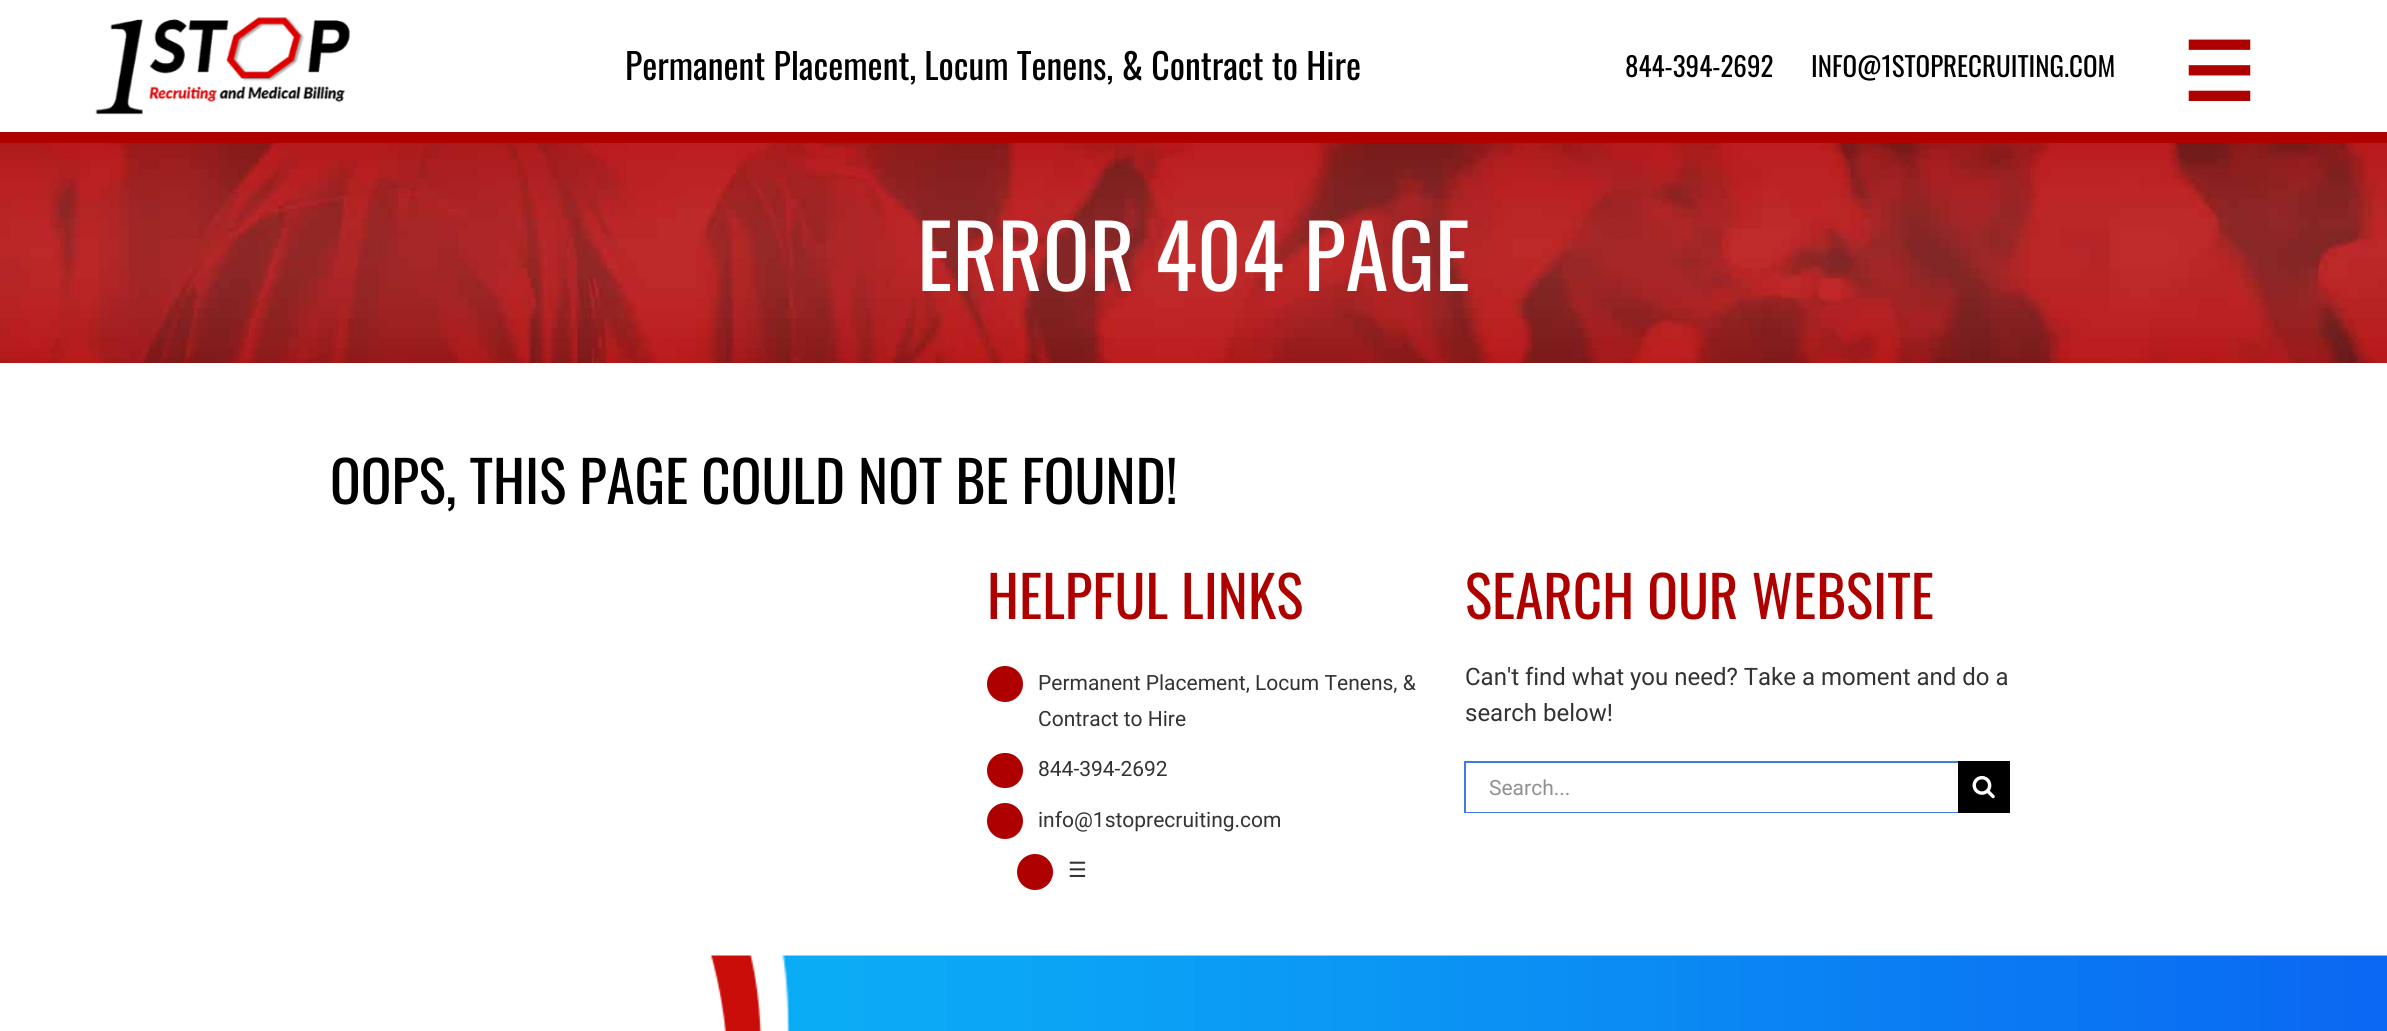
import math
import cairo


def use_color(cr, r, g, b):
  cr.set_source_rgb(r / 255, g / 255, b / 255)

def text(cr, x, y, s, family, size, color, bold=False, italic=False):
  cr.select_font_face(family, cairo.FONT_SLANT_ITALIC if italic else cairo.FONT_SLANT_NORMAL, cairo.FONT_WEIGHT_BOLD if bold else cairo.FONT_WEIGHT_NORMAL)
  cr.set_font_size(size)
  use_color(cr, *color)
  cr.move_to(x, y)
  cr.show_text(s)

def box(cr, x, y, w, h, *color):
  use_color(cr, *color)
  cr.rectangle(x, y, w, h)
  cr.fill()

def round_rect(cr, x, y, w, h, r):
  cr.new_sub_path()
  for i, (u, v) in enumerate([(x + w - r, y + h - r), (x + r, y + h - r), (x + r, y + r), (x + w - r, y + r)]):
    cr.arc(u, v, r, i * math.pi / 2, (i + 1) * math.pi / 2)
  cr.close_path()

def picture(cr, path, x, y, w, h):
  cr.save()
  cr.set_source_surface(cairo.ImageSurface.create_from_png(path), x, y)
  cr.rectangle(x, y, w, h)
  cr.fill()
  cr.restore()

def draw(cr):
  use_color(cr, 255, 255, 255)
  cr.paint()
  box(cr, 0, 132, 2387, 11, 175, 0, 0)
  picture(cr, "img_01.png", 95, 17, 255, 98)
  picture(cr, "img_02.png", 0, 143, 2387, 220)
  cr.arc(1005, 684, 18, 0, 2 * math.pi)
  cr.fill()
  round_rect(cr, 987, 753, 36, 35, 17.5)
  cr.fill()
  cr.arc(1005, 821, 18, 0, 2 * math.pi)
  cr.fill()
  cr.arc(1035, 872, 18, 0, 2 * math.pi)
  cr.fill()
  box(cr, 1464, 761, 494, 2, 61, 123, 232)
  box(cr, 1464, 812, 494, 1, 61, 123, 232)
  box(cr, 1464, 761, 2, 52, 61, 123, 232)
  box(cr, 1958, 761, 52, 52, 0, 0, 0)
  picture(cr, "img_03.png", 1972, 775, 23, 24)
  picture(cr, "img_04.png", 710, 955, 1677, 76)
  text(cr, 625, 80, "Permanent Placement, Locum Tenens, & Contract to Hire", "Oswald", 35.8, (0, 0, 0))
  text(cr, 1625, 77, "844-394-2692", "Oswald", 27, (0, 0, 0))
  text(cr, 1811, 77, "INFO@1STOPRECRUITING.COM", "Oswald", 27, (0, 0, 0))
  text(cr, 2182, 101, "☰", "DejaVu Sans", 81, (175, 0, 0), bold=True)
  text(cr, 917, 291, "ERROR 404 PAGE", "Oswald", 87, (255, 255, 255))
  text(cr, 330, 504, "OOPS, THIS PAGE COULD NOT BE FOUND!", "Oswald", 57, (0, 0, 0))
  text(cr, 987, 619, "HELPFUL LINKS", "Oswald", 57, (175, 0, 0))
  text(cr, 1038, 690, "Permanent Placement, Locum Tenens, &", "Roboto", 21, (51, 51, 51))
  text(cr, 1038, 726, "Contract to Hire", "Roboto", 21, (51, 51, 51))
  text(cr, 1038, 776, "844-394-2692", "Roboto", 21, (51, 51, 51))
  text(cr, 1038, 827, "info@1stoprecruiting.com", "Roboto", 21, (51, 51, 51))
  text(cr, 1068, 877, "☰", "DejaVu Sans", 21, (51, 51, 51))
  text(cr, 1465, 619, "SEARCH OUR WEBSITE", "Oswald", 57, (175, 0, 0))
  text(cr, 1465, 685, "Can't find what you need? Take a moment and do a", "Roboto", 24, (51, 51, 51))
  text(cr, 1465, 721, "search below!", "Roboto", 24, (51, 51, 51))
  text(cr, 1489, 795, "Search...", "Roboto", 21, (145, 143, 143))


surface = cairo.ImageSurface(cairo.FORMAT_RGB24, 2387, 1031)
cr = cairo.Context(surface)
options = cairo.FontOptions()
options.set_hint_metrics(cairo.HINT_METRICS_OFF)
options.set_hint_style(cairo.HINT_STYLE_NONE)
cr.set_font_options(options)
cr.set_miter_limit(4)
draw(cr)
surface.write_to_png("out.png")
